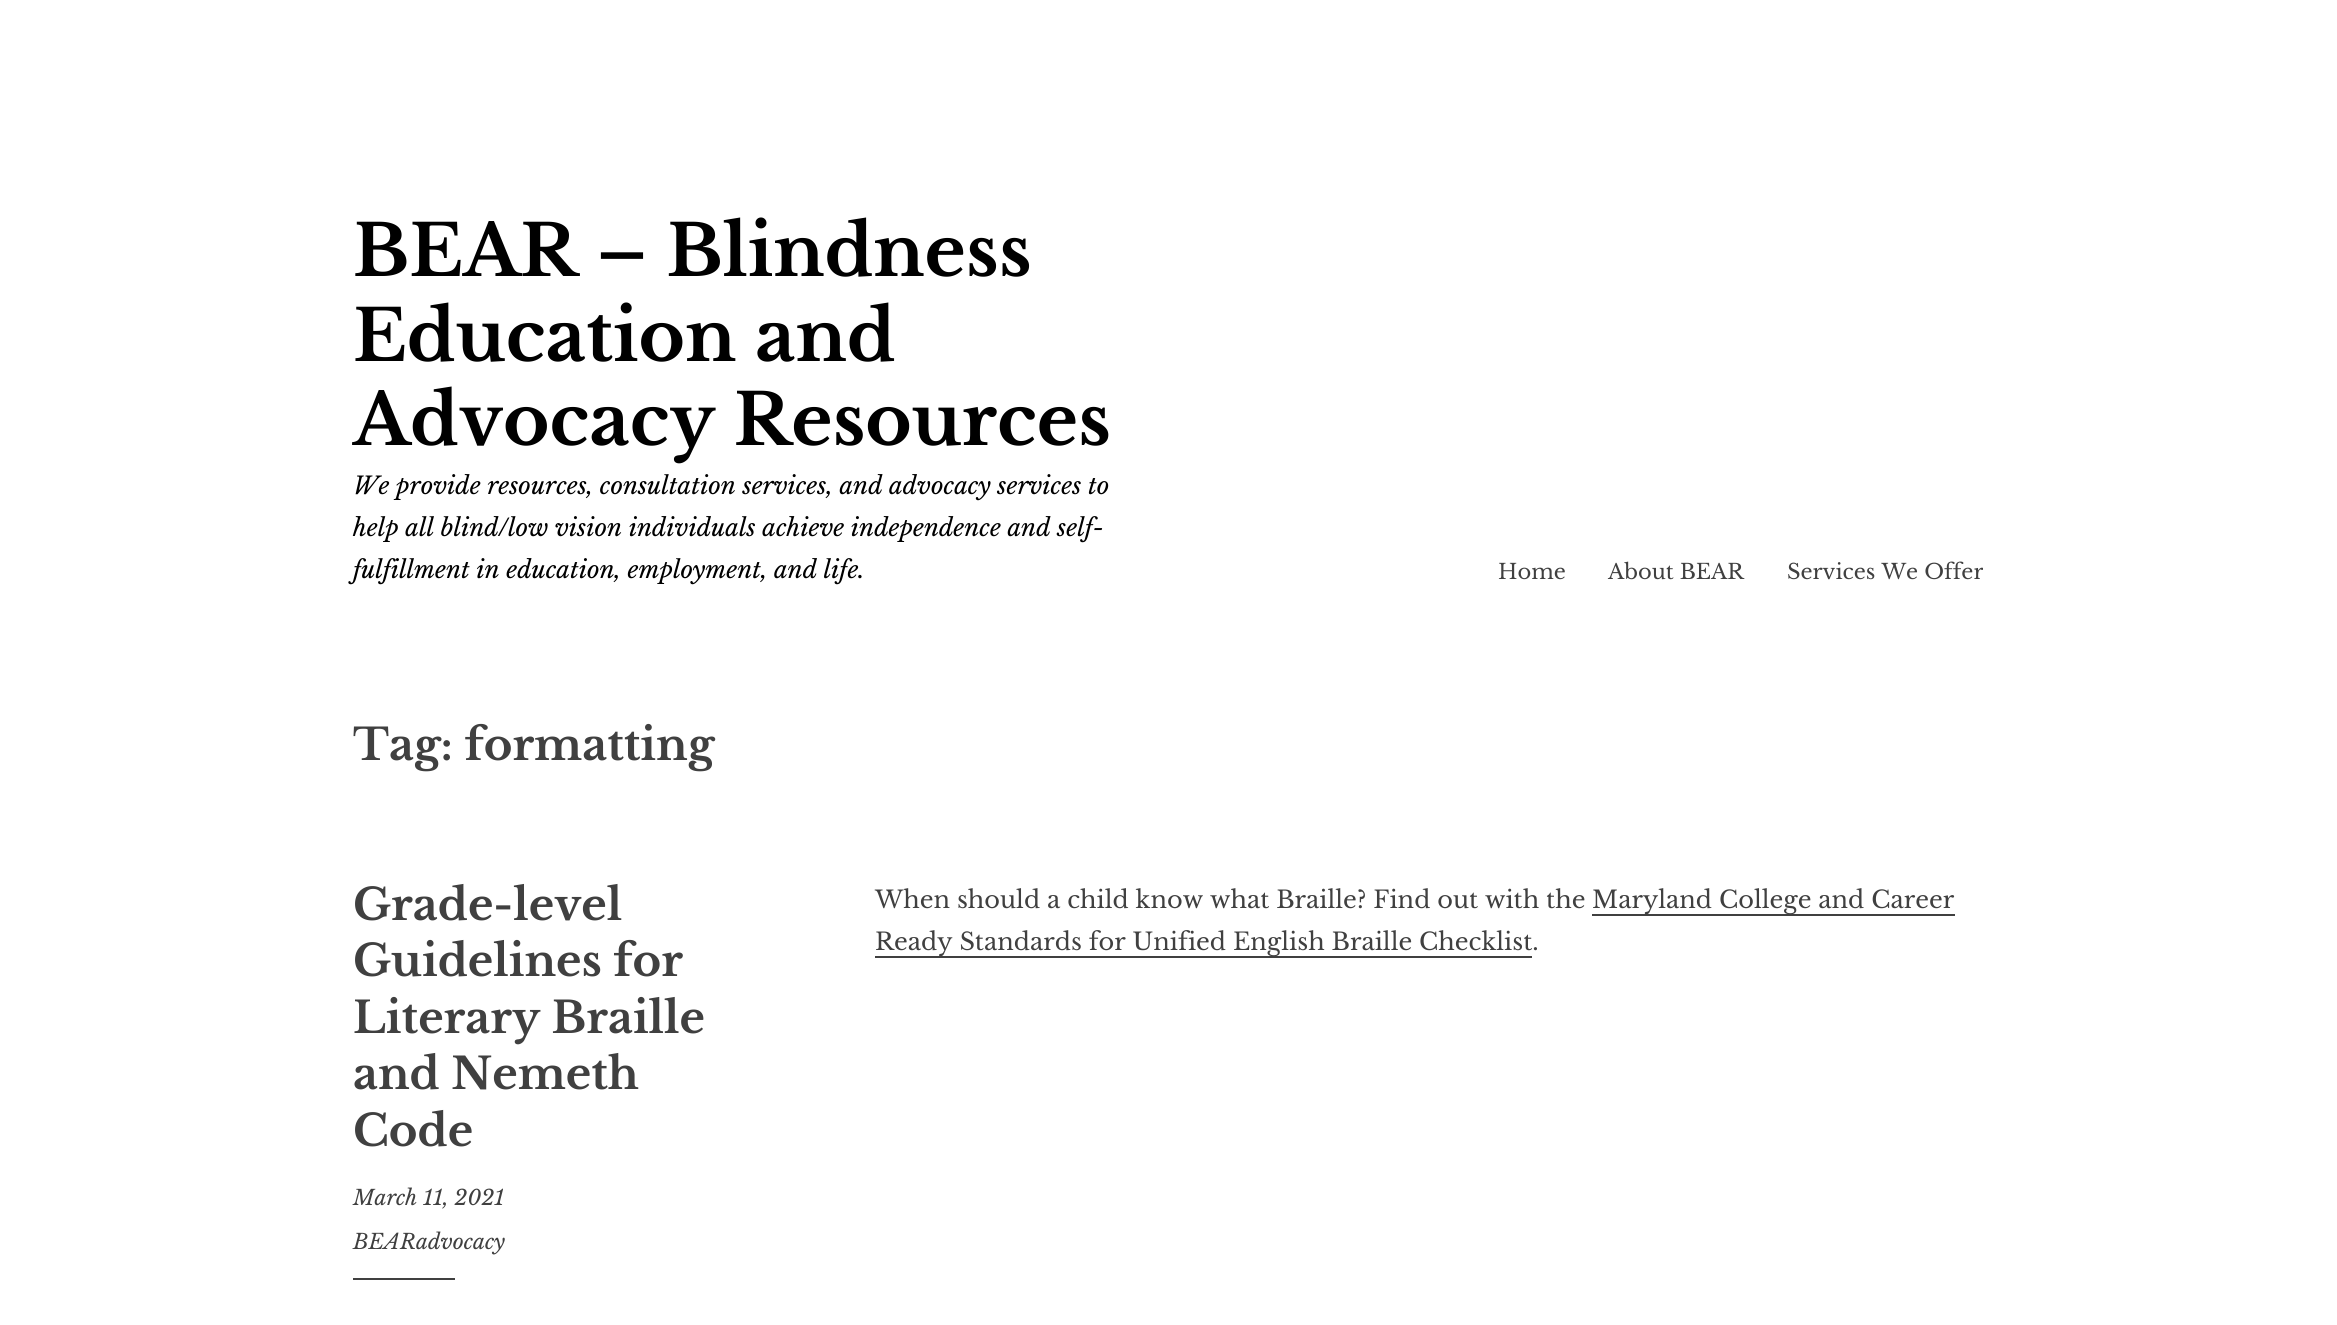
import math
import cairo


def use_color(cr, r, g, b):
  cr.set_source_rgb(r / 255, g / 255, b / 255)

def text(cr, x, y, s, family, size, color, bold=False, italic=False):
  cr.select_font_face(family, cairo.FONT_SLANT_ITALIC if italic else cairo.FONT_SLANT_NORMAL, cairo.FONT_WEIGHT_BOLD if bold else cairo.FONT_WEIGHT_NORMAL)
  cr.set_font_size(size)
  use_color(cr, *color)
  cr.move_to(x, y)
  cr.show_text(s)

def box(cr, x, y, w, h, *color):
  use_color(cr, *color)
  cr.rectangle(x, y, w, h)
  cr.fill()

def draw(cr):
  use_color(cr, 255, 255, 255)
  cr.paint()
  box(cr, 353, 1278, 102, 2, 64, 64, 64)
  box(cr, 1592, 914, 363, 2, 64, 64, 64)
  box(cr, 875, 956, 657, 2, 64, 64, 64)
  text(cr, 353, 276, "BEAR – Blindness", "Libre Baskerville", 70.5, (0, 0, 0), bold=True)
  text(cr, 353, 361, "Education and", "Libre Baskerville", 70.5, (0, 0, 0), bold=True)
  text(cr, 353, 445, "Advocacy Resources", "Libre Baskerville", 70.5, (0, 0, 0), bold=True)
  text(cr, 353, 494, "We provide resources, consultation services, and advocacy services to", "Libre Baskerville", 24, (0, 0, 0), italic=True)
  text(cr, 353, 536, "help all blind/low vision individuals achieve independence and self-", "Libre Baskerville", 24, (0, 0, 0), italic=True)
  text(cr, 353, 578, "fulfillment in education, employment, and life.", "Libre Baskerville", 24, (0, 0, 0), italic=True)
  text(cr, 1498, 579, "Home", "Libre Baskerville", 21, (64, 64, 64))
  text(cr, 1608, 579, "About BEAR", "Libre Baskerville", 21, (64, 64, 64))
  text(cr, 1787, 579, "Services We Offer", "Libre Baskerville", 21, (64, 64, 64))
  text(cr, 353, 760, "Tag: formatting", "Libre Baskerville", 43.5, (64, 64, 64), bold=True)
  text(cr, 353, 920, "Grade-level", "Libre Baskerville", 43.5, (64, 64, 64), bold=True)
  text(cr, 353, 976, "Guidelines for", "Libre Baskerville", 43.5, (64, 64, 64), bold=True)
  text(cr, 353, 1033, "Literary Braille", "Libre Baskerville", 43.5, (64, 64, 64), bold=True)
  text(cr, 353, 1089, "and Nemeth", "Libre Baskerville", 43.5, (64, 64, 64), bold=True)
  text(cr, 353, 1146, "Code", "Libre Baskerville", 43.5, (64, 64, 64), bold=True)
  text(cr, 353, 1205, "March 11, 2021", "Libre Baskerville", 21, (64, 64, 64), italic=True)
  text(cr, 353, 1249, "BEARadvocacy", "Libre Baskerville", 21, (64, 64, 64), italic=True)
  text(cr, 875, 908, "When should a child know what Braille? Find out with the", "Libre Baskerville", 24, (64, 64, 64))
  text(cr, 1592, 908, "Maryland College and Career", "Libre Baskerville", 24, (64, 64, 64))
  text(cr, 875, 950, "Ready Standards for Unified English Braille Checklist.", "Libre Baskerville", 24, (64, 64, 64))


surface = cairo.ImageSurface(cairo.FORMAT_RGB24, 2337, 1325)
cr = cairo.Context(surface)
options = cairo.FontOptions()
options.set_hint_metrics(cairo.HINT_METRICS_OFF)
options.set_hint_style(cairo.HINT_STYLE_NONE)
cr.set_font_options(options)
cr.set_miter_limit(4)
draw(cr)
surface.write_to_png("out.png")
